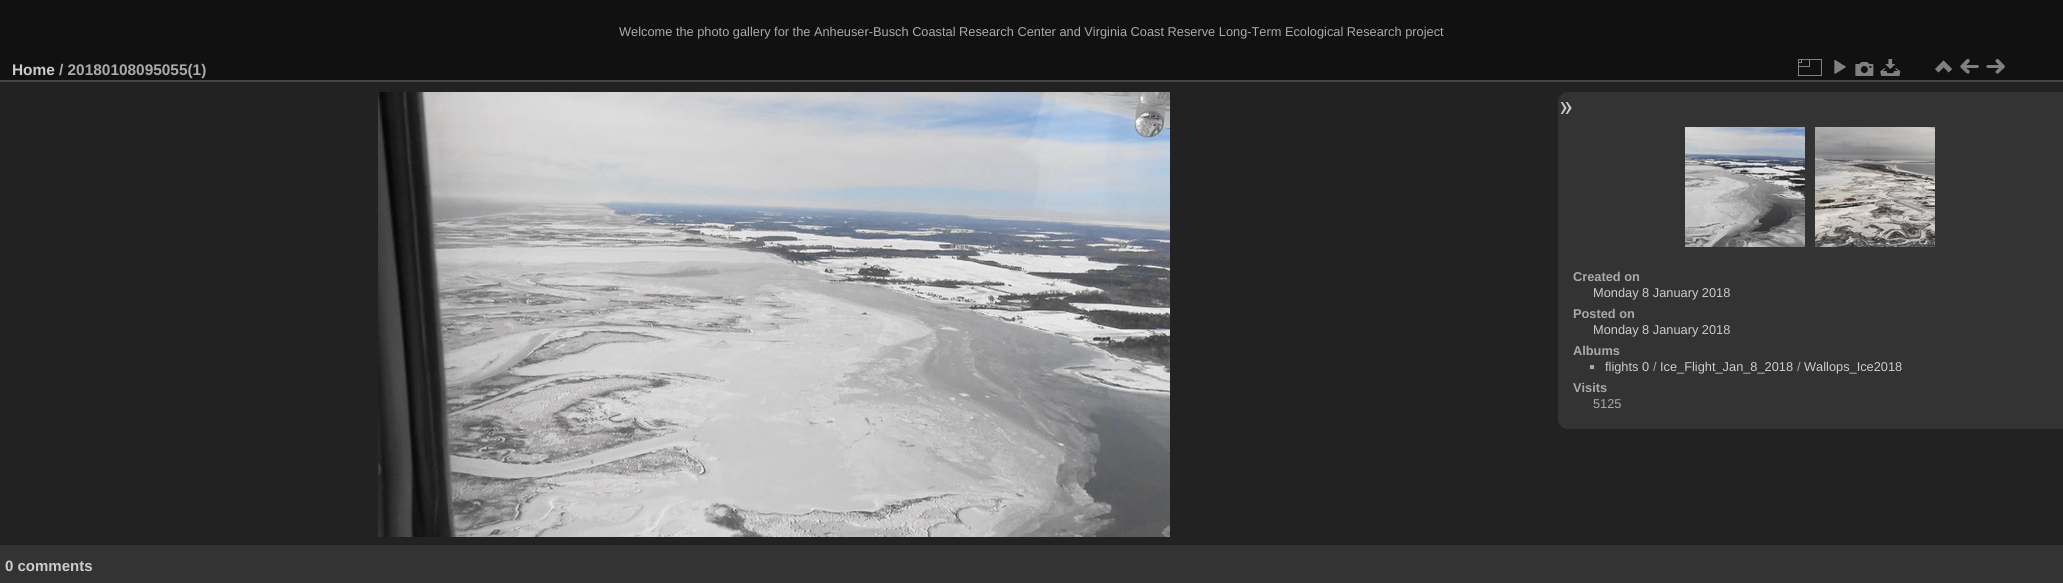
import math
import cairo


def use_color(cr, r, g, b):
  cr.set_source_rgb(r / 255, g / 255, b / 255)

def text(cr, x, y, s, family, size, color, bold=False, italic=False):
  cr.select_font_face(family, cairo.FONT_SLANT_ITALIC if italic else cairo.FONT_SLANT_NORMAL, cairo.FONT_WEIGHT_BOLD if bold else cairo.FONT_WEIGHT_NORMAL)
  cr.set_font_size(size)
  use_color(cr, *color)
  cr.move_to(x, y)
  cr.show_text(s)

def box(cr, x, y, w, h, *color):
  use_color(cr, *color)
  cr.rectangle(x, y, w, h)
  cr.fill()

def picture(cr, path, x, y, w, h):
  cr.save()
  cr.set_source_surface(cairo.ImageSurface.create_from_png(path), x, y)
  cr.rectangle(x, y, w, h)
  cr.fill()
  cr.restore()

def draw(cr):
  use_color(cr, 17, 17, 17)
  cr.paint()
  box(cr, 0, 82, 2063, 463, 34, 34, 34)
  box(cr, 0, 80, 2063, 2, 68, 68, 68)
  picture(cr, "img_01.png", 1798, 59, 24, 17)
  picture(cr, "img_02.png", 1834, 60, 12, 14)
  picture(cr, "img_03.png", 1855, 62, 19, 14)
  picture(cr, "img_04.png", 1880, 59, 21, 17)
  picture(cr, "img_05.png", 1935, 60, 17, 13)
  picture(cr, "img_06.png", 1960, 59, 19, 15)
  picture(cr, "img_07.png", 1986, 59, 19, 15)
  picture(cr, "img_08.png", 378, 92, 792, 445)
  use_color(cr, 51, 51, 51)
  cr.new_path()
  cr.move_to(1568, 92)
  cr.line_to(2063, 92)
  cr.line_to(2063, 429)
  cr.line_to(1568, 429)
  cr.curve_to(1562.5, 429, 1558, 424.5, 1558, 419)
  cr.line_to(1558, 102)
  cr.curve_to(1558, 96.5, 1562.5, 92, 1568, 92)
  cr.close_path()
  cr.fill()
  picture(cr, "img_09.png", 1560, 102, 12, 12)
  picture(cr, "img_10.png", 1685, 127, 120, 120)
  picture(cr, "img_11.png", 1815, 127, 120, 120)
  box(cr, 1590, 365, 4, 4, 170, 170, 170)
  box(cr, 0, 545, 2063, 38, 51, 51, 51)
  text(cr, 619, 36, "Welcome the photo gallery for the Anheuser-Busch Coastal Research Center and Virginia Coast Reserve Long-Term Ecological Research project", "Liberation Sans", 12.8, (170, 170, 170))
  text(cr, 12, 75, "Home", "Liberation Sans", 15.4, (204, 204, 204), bold=True)
  text(cr, 59, 75, "/ 20180108095055(1)", "Liberation Sans", 15.4, (170, 170, 170), bold=True)
  text(cr, 1573, 281, "Created on", "Liberation Sans", 12.8, (170, 170, 170), bold=True)
  text(cr, 1593, 297, "Monday 8 January 2018", "Liberation Sans", 12.8, (204, 204, 204))
  text(cr, 1573, 318, "Posted on", "Liberation Sans", 12.8, (170, 170, 170), bold=True)
  text(cr, 1593, 334, "Monday 8 January 2018", "Liberation Sans", 12.8, (204, 204, 204))
  text(cr, 1573, 355, "Albums", "Liberation Sans", 12.8, (170, 170, 170), bold=True)
  text(cr, 1605, 371, "flights 0", "Liberation Sans", 12.8, (204, 204, 204))
  text(cr, 1653, 371, "/", "Liberation Sans", 12.8, (170, 170, 170))
  text(cr, 1660, 371, "Ice_Flight_Jan_8_2018", "Liberation Sans", 12.8, (204, 204, 204))
  text(cr, 1797, 371, "/", "Liberation Sans", 12.8, (170, 170, 170))
  text(cr, 1804, 371, "Wallops_Ice2018", "Liberation Sans", 12.8, (204, 204, 204))
  text(cr, 1573, 392, "Visits", "Liberation Sans", 12.8, (170, 170, 170), bold=True)
  text(cr, 1593, 408, "5125", "Liberation Sans", 12.8, (170, 170, 170))
  text(cr, 5, 571, "0 comments", "Liberation Sans", 15, (204, 204, 204), bold=True)


surface = cairo.ImageSurface(cairo.FORMAT_RGB24, 2063, 583)
cr = cairo.Context(surface)
options = cairo.FontOptions()
options.set_hint_metrics(cairo.HINT_METRICS_OFF)
options.set_hint_style(cairo.HINT_STYLE_NONE)
cr.set_font_options(options)
cr.set_miter_limit(4)
draw(cr)
surface.write_to_png("out.png")
